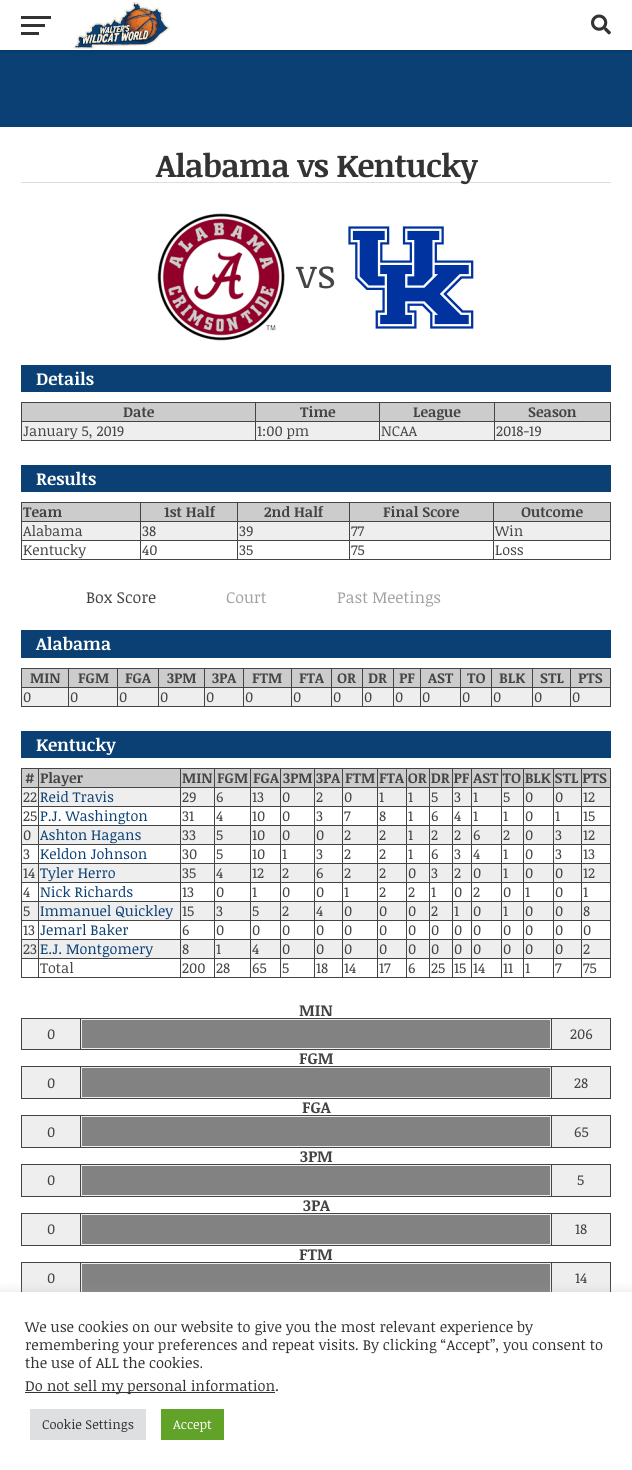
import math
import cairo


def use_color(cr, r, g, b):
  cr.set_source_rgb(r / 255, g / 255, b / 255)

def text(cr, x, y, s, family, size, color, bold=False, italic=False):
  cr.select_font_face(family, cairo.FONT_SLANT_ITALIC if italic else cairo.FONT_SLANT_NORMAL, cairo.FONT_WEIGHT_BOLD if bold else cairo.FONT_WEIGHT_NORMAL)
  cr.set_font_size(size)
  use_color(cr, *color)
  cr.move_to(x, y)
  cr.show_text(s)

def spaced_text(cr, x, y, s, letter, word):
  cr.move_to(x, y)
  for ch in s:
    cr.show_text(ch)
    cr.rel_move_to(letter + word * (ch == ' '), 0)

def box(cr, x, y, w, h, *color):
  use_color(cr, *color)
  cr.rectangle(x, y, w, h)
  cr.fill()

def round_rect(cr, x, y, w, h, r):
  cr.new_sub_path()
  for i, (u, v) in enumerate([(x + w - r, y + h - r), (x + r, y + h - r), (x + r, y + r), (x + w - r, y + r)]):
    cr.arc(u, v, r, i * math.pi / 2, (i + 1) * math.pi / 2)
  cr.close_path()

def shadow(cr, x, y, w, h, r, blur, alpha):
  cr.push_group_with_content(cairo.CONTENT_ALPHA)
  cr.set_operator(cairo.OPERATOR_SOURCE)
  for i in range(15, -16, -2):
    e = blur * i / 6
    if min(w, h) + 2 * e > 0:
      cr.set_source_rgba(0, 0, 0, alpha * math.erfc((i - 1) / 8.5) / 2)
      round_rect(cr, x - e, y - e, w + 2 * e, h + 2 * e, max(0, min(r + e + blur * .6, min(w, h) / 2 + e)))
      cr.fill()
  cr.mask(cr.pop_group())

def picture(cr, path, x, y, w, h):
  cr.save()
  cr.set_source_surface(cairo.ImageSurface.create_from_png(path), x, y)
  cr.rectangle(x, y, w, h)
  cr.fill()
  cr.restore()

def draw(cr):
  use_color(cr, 10, 64, 116)
  cr.paint()
  use_color(cr, 0, 0, 0)
  shadow(cr, 0, 2, 632, 50, 0, 1, 0.1)
  box(cr, 0, 0, 632, 50, 255, 255, 255)
  box(cr, 21, 16, 30, 3, 51, 51, 51)
  box(cr, 21, 24, 24, 3, 51, 51, 51)
  box(cr, 21, 32, 18, 3, 51, 51, 51)
  picture(cr, "img_01.png", 73, 1, 97, 48)
  picture(cr, "img_02.png", 591, 14, 20, 21)
  box(cr, 0, 127, 632, 1165, 255, 255, 255)
  box(cr, 21, 182, 590, 1, 221, 221, 221)
  picture(cr, "img_03.png", 157, 213, 128, 128)
  picture(cr, "img_04.png", 348, 226, 126, 103)
  box(cr, 21, 365, 590, 27, 10, 64, 116)
  box(cr, 22, 403, 588, 18, 204, 204, 204)
  box(cr, 494, 402, 117, 1, 68, 68, 68)
  box(cr, 494, 421, 117, 1, 68, 68, 68)
  box(cr, 22, 422, 588, 18, 238, 238, 238)
  box(cr, 610, 421, 1, 20, 68, 68, 68)
  box(cr, 494, 440, 117, 1, 68, 68, 68)
  box(cr, 494, 421, 1, 20, 68, 68, 68)
  box(cr, 379, 421, 116, 1, 68, 68, 68)
  box(cr, 494, 402, 1, 20, 68, 68, 68)
  box(cr, 379, 402, 116, 1, 68, 68, 68)
  box(cr, 379, 440, 116, 1, 68, 68, 68)
  box(cr, 379, 421, 1, 20, 68, 68, 68)
  box(cr, 255, 421, 125, 1, 68, 68, 68)
  box(cr, 379, 402, 1, 20, 68, 68, 68)
  box(cr, 255, 402, 125, 1, 68, 68, 68)
  box(cr, 255, 440, 125, 1, 68, 68, 68)
  box(cr, 255, 421, 1, 20, 68, 68, 68)
  box(cr, 21, 421, 235, 1, 68, 68, 68)
  box(cr, 255, 402, 1, 20, 68, 68, 68)
  box(cr, 21, 402, 235, 1, 68, 68, 68)
  box(cr, 21, 440, 235, 1, 68, 68, 68)
  box(cr, 21, 421, 1, 20, 68, 68, 68)
  box(cr, 21, 402, 1, 20, 68, 68, 68)
  box(cr, 610, 402, 1, 20, 68, 68, 68)
  box(cr, 21, 465, 590, 27, 10, 64, 116)
  box(cr, 22, 503, 588, 18, 204, 204, 204)
  box(cr, 493, 502, 118, 1, 68, 68, 68)
  box(cr, 493, 521, 118, 1, 68, 68, 68)
  box(cr, 22, 522, 588, 18, 238, 238, 238)
  box(cr, 493, 540, 118, 1, 68, 68, 68)
  box(cr, 610, 540, 1, 20, 68, 68, 68)
  box(cr, 493, 559, 118, 1, 68, 68, 68)
  box(cr, 493, 540, 1, 20, 68, 68, 68)
  box(cr, 349, 540, 145, 1, 68, 68, 68)
  box(cr, 493, 521, 1, 20, 68, 68, 68)
  box(cr, 349, 521, 145, 1, 68, 68, 68)
  box(cr, 493, 502, 1, 20, 68, 68, 68)
  box(cr, 349, 502, 145, 1, 68, 68, 68)
  box(cr, 349, 559, 145, 1, 68, 68, 68)
  box(cr, 349, 540, 1, 20, 68, 68, 68)
  box(cr, 237, 540, 113, 1, 68, 68, 68)
  box(cr, 349, 521, 1, 20, 68, 68, 68)
  box(cr, 237, 521, 113, 1, 68, 68, 68)
  box(cr, 349, 502, 1, 20, 68, 68, 68)
  box(cr, 237, 502, 113, 1, 68, 68, 68)
  box(cr, 237, 559, 113, 1, 68, 68, 68)
  box(cr, 237, 540, 1, 20, 68, 68, 68)
  box(cr, 140, 540, 98, 1, 68, 68, 68)
  box(cr, 237, 521, 1, 20, 68, 68, 68)
  box(cr, 140, 521, 98, 1, 68, 68, 68)
  box(cr, 237, 502, 1, 20, 68, 68, 68)
  box(cr, 140, 502, 98, 1, 68, 68, 68)
  box(cr, 140, 559, 98, 1, 68, 68, 68)
  box(cr, 140, 540, 1, 20, 68, 68, 68)
  box(cr, 21, 540, 120, 1, 68, 68, 68)
  box(cr, 140, 521, 1, 20, 68, 68, 68)
  box(cr, 21, 521, 120, 1, 68, 68, 68)
  box(cr, 140, 502, 1, 20, 68, 68, 68)
  box(cr, 21, 502, 120, 1, 68, 68, 68)
  box(cr, 21, 559, 120, 1, 68, 68, 68)
  box(cr, 21, 540, 1, 20, 68, 68, 68)
  box(cr, 21, 521, 1, 20, 68, 68, 68)
  box(cr, 21, 502, 1, 20, 68, 68, 68)
  box(cr, 610, 521, 1, 20, 68, 68, 68)
  box(cr, 610, 502, 1, 20, 68, 68, 68)
  box(cr, 21, 630, 590, 28, 10, 64, 116)
  box(cr, 22, 669, 588, 18, 204, 204, 204)
  box(cr, 570, 668, 41, 1, 68, 68, 68)
  box(cr, 570, 687, 41, 1, 68, 68, 68)
  box(cr, 22, 688, 588, 18, 238, 238, 238)
  box(cr, 610, 687, 1, 20, 68, 68, 68)
  box(cr, 570, 706, 41, 1, 68, 68, 68)
  box(cr, 570, 687, 1, 20, 68, 68, 68)
  box(cr, 532, 687, 39, 1, 68, 68, 68)
  box(cr, 570, 668, 1, 20, 68, 68, 68)
  box(cr, 532, 668, 39, 1, 68, 68, 68)
  box(cr, 532, 706, 39, 1, 68, 68, 68)
  box(cr, 532, 687, 1, 20, 68, 68, 68)
  box(cr, 491, 687, 42, 1, 68, 68, 68)
  box(cr, 532, 668, 1, 20, 68, 68, 68)
  box(cr, 491, 668, 42, 1, 68, 68, 68)
  box(cr, 491, 706, 42, 1, 68, 68, 68)
  box(cr, 491, 687, 1, 20, 68, 68, 68)
  box(cr, 460, 687, 32, 1, 68, 68, 68)
  box(cr, 491, 668, 1, 20, 68, 68, 68)
  box(cr, 460, 668, 32, 1, 68, 68, 68)
  box(cr, 460, 706, 32, 1, 68, 68, 68)
  box(cr, 460, 687, 1, 20, 68, 68, 68)
  box(cr, 420, 687, 41, 1, 68, 68, 68)
  box(cr, 460, 668, 1, 20, 68, 68, 68)
  box(cr, 420, 668, 41, 1, 68, 68, 68)
  box(cr, 420, 706, 41, 1, 68, 68, 68)
  box(cr, 420, 687, 1, 20, 68, 68, 68)
  box(cr, 393, 687, 28, 1, 68, 68, 68)
  box(cr, 420, 668, 1, 20, 68, 68, 68)
  box(cr, 393, 668, 28, 1, 68, 68, 68)
  box(cr, 393, 706, 28, 1, 68, 68, 68)
  box(cr, 393, 687, 1, 20, 68, 68, 68)
  box(cr, 362, 687, 32, 1, 68, 68, 68)
  box(cr, 393, 668, 1, 20, 68, 68, 68)
  box(cr, 362, 668, 32, 1, 68, 68, 68)
  box(cr, 362, 706, 32, 1, 68, 68, 68)
  box(cr, 362, 687, 1, 20, 68, 68, 68)
  box(cr, 331, 687, 32, 1, 68, 68, 68)
  box(cr, 362, 668, 1, 20, 68, 68, 68)
  box(cr, 331, 668, 32, 1, 68, 68, 68)
  box(cr, 331, 706, 32, 1, 68, 68, 68)
  box(cr, 331, 687, 1, 20, 68, 68, 68)
  box(cr, 291, 687, 41, 1, 68, 68, 68)
  box(cr, 331, 668, 1, 20, 68, 68, 68)
  box(cr, 291, 668, 41, 1, 68, 68, 68)
  box(cr, 291, 706, 41, 1, 68, 68, 68)
  box(cr, 291, 687, 1, 20, 68, 68, 68)
  box(cr, 243, 687, 49, 1, 68, 68, 68)
  box(cr, 291, 668, 1, 20, 68, 68, 68)
  box(cr, 243, 668, 49, 1, 68, 68, 68)
  box(cr, 243, 706, 49, 1, 68, 68, 68)
  box(cr, 243, 687, 1, 20, 68, 68, 68)
  box(cr, 204, 687, 40, 1, 68, 68, 68)
  box(cr, 243, 668, 1, 20, 68, 68, 68)
  box(cr, 204, 668, 40, 1, 68, 68, 68)
  box(cr, 204, 706, 40, 1, 68, 68, 68)
  box(cr, 204, 687, 1, 20, 68, 68, 68)
  box(cr, 158, 687, 47, 1, 68, 68, 68)
  box(cr, 204, 668, 1, 20, 68, 68, 68)
  box(cr, 158, 668, 47, 1, 68, 68, 68)
  box(cr, 158, 706, 47, 1, 68, 68, 68)
  box(cr, 158, 687, 1, 20, 68, 68, 68)
  box(cr, 117, 687, 42, 1, 68, 68, 68)
  box(cr, 158, 668, 1, 20, 68, 68, 68)
  box(cr, 117, 668, 42, 1, 68, 68, 68)
  box(cr, 117, 706, 42, 1, 68, 68, 68)
  box(cr, 117, 687, 1, 20, 68, 68, 68)
  box(cr, 68, 687, 50, 1, 68, 68, 68)
  box(cr, 117, 668, 1, 20, 68, 68, 68)
  box(cr, 68, 668, 50, 1, 68, 68, 68)
  box(cr, 68, 706, 50, 1, 68, 68, 68)
  box(cr, 68, 687, 1, 20, 68, 68, 68)
  box(cr, 21, 687, 48, 1, 68, 68, 68)
  box(cr, 68, 668, 1, 20, 68, 68, 68)
  box(cr, 21, 668, 48, 1, 68, 68, 68)
  box(cr, 21, 706, 48, 1, 68, 68, 68)
  box(cr, 21, 687, 1, 20, 68, 68, 68)
  box(cr, 21, 668, 1, 20, 68, 68, 68)
  box(cr, 610, 668, 1, 20, 68, 68, 68)
  box(cr, 21, 731, 590, 27, 10, 64, 116)
  box(cr, 22, 769, 588, 18, 204, 204, 204)
  box(cr, 581, 768, 30, 1, 68, 68, 68)
  box(cr, 581, 787, 30, 1, 68, 68, 68)
  box(cr, 22, 788, 588, 18, 238, 238, 238)
  box(cr, 581, 806, 30, 1, 68, 68, 68)
  box(cr, 581, 825, 30, 1, 68, 68, 68)
  box(cr, 22, 826, 588, 18, 238, 238, 238)
  box(cr, 581, 844, 30, 1, 68, 68, 68)
  box(cr, 581, 863, 30, 1, 68, 68, 68)
  box(cr, 22, 864, 588, 18, 238, 238, 238)
  box(cr, 581, 882, 30, 1, 68, 68, 68)
  box(cr, 581, 901, 30, 1, 68, 68, 68)
  box(cr, 22, 902, 588, 18, 238, 238, 238)
  box(cr, 581, 920, 30, 1, 68, 68, 68)
  box(cr, 581, 939, 30, 1, 68, 68, 68)
  box(cr, 22, 940, 588, 18, 238, 238, 238)
  box(cr, 581, 958, 30, 1, 68, 68, 68)
  box(cr, 610, 958, 1, 20, 68, 68, 68)
  box(cr, 581, 977, 30, 1, 68, 68, 68)
  box(cr, 581, 958, 1, 20, 68, 68, 68)
  box(cr, 553, 958, 29, 1, 68, 68, 68)
  box(cr, 581, 939, 1, 20, 68, 68, 68)
  box(cr, 553, 939, 29, 1, 68, 68, 68)
  box(cr, 581, 920, 1, 20, 68, 68, 68)
  box(cr, 553, 920, 29, 1, 68, 68, 68)
  box(cr, 581, 901, 1, 20, 68, 68, 68)
  box(cr, 553, 901, 29, 1, 68, 68, 68)
  box(cr, 581, 882, 1, 20, 68, 68, 68)
  box(cr, 553, 882, 29, 1, 68, 68, 68)
  box(cr, 581, 863, 1, 20, 68, 68, 68)
  box(cr, 553, 863, 29, 1, 68, 68, 68)
  box(cr, 581, 844, 1, 20, 68, 68, 68)
  box(cr, 553, 844, 29, 1, 68, 68, 68)
  box(cr, 581, 825, 1, 20, 68, 68, 68)
  box(cr, 553, 825, 29, 1, 68, 68, 68)
  box(cr, 581, 806, 1, 20, 68, 68, 68)
  box(cr, 553, 806, 29, 1, 68, 68, 68)
  box(cr, 581, 787, 1, 20, 68, 68, 68)
  box(cr, 553, 787, 29, 1, 68, 68, 68)
  box(cr, 581, 768, 1, 20, 68, 68, 68)
  box(cr, 553, 768, 29, 1, 68, 68, 68)
  box(cr, 553, 977, 29, 1, 68, 68, 68)
  box(cr, 553, 958, 1, 20, 68, 68, 68)
  box(cr, 523, 958, 31, 1, 68, 68, 68)
  box(cr, 553, 939, 1, 20, 68, 68, 68)
  box(cr, 523, 939, 31, 1, 68, 68, 68)
  box(cr, 553, 920, 1, 20, 68, 68, 68)
  box(cr, 523, 920, 31, 1, 68, 68, 68)
  box(cr, 553, 901, 1, 20, 68, 68, 68)
  box(cr, 523, 901, 31, 1, 68, 68, 68)
  box(cr, 553, 882, 1, 20, 68, 68, 68)
  box(cr, 523, 882, 31, 1, 68, 68, 68)
  box(cr, 553, 863, 1, 20, 68, 68, 68)
  box(cr, 523, 863, 31, 1, 68, 68, 68)
  box(cr, 553, 844, 1, 20, 68, 68, 68)
  box(cr, 523, 844, 31, 1, 68, 68, 68)
  box(cr, 553, 825, 1, 20, 68, 68, 68)
  box(cr, 523, 825, 31, 1, 68, 68, 68)
  box(cr, 553, 806, 1, 20, 68, 68, 68)
  box(cr, 523, 806, 31, 1, 68, 68, 68)
  box(cr, 553, 787, 1, 20, 68, 68, 68)
  box(cr, 523, 787, 31, 1, 68, 68, 68)
  box(cr, 553, 768, 1, 20, 68, 68, 68)
  box(cr, 523, 768, 31, 1, 68, 68, 68)
  box(cr, 523, 977, 31, 1, 68, 68, 68)
  box(cr, 523, 958, 1, 20, 68, 68, 68)
  box(cr, 501, 958, 23, 1, 68, 68, 68)
  box(cr, 523, 939, 1, 20, 68, 68, 68)
  box(cr, 501, 939, 23, 1, 68, 68, 68)
  box(cr, 523, 920, 1, 20, 68, 68, 68)
  box(cr, 501, 920, 23, 1, 68, 68, 68)
  box(cr, 523, 901, 1, 20, 68, 68, 68)
  box(cr, 501, 901, 23, 1, 68, 68, 68)
  box(cr, 523, 882, 1, 20, 68, 68, 68)
  box(cr, 501, 882, 23, 1, 68, 68, 68)
  box(cr, 523, 863, 1, 20, 68, 68, 68)
  box(cr, 501, 863, 23, 1, 68, 68, 68)
  box(cr, 523, 844, 1, 20, 68, 68, 68)
  box(cr, 501, 844, 23, 1, 68, 68, 68)
  box(cr, 523, 825, 1, 20, 68, 68, 68)
  box(cr, 501, 825, 23, 1, 68, 68, 68)
  box(cr, 523, 806, 1, 20, 68, 68, 68)
  box(cr, 501, 806, 23, 1, 68, 68, 68)
  box(cr, 523, 787, 1, 20, 68, 68, 68)
  box(cr, 501, 787, 23, 1, 68, 68, 68)
  box(cr, 523, 768, 1, 20, 68, 68, 68)
  box(cr, 501, 768, 23, 1, 68, 68, 68)
  box(cr, 501, 977, 23, 1, 68, 68, 68)
  box(cr, 501, 958, 1, 20, 68, 68, 68)
  box(cr, 471, 958, 31, 1, 68, 68, 68)
  box(cr, 501, 939, 1, 20, 68, 68, 68)
  box(cr, 471, 939, 31, 1, 68, 68, 68)
  box(cr, 501, 920, 1, 20, 68, 68, 68)
  box(cr, 471, 920, 31, 1, 68, 68, 68)
  box(cr, 501, 901, 1, 20, 68, 68, 68)
  box(cr, 471, 901, 31, 1, 68, 68, 68)
  box(cr, 501, 882, 1, 20, 68, 68, 68)
  box(cr, 471, 882, 31, 1, 68, 68, 68)
  box(cr, 501, 863, 1, 20, 68, 68, 68)
  box(cr, 471, 863, 31, 1, 68, 68, 68)
  box(cr, 501, 844, 1, 20, 68, 68, 68)
  box(cr, 471, 844, 31, 1, 68, 68, 68)
  box(cr, 501, 825, 1, 20, 68, 68, 68)
  box(cr, 471, 825, 31, 1, 68, 68, 68)
  box(cr, 501, 806, 1, 20, 68, 68, 68)
  box(cr, 471, 806, 31, 1, 68, 68, 68)
  box(cr, 501, 787, 1, 20, 68, 68, 68)
  box(cr, 471, 787, 31, 1, 68, 68, 68)
  box(cr, 501, 768, 1, 20, 68, 68, 68)
  box(cr, 471, 768, 31, 1, 68, 68, 68)
  box(cr, 471, 977, 31, 1, 68, 68, 68)
  box(cr, 471, 958, 1, 20, 68, 68, 68)
  box(cr, 452, 958, 20, 1, 68, 68, 68)
  box(cr, 471, 939, 1, 20, 68, 68, 68)
  box(cr, 452, 939, 20, 1, 68, 68, 68)
  box(cr, 471, 920, 1, 20, 68, 68, 68)
  box(cr, 452, 920, 20, 1, 68, 68, 68)
  box(cr, 471, 901, 1, 20, 68, 68, 68)
  box(cr, 452, 901, 20, 1, 68, 68, 68)
  box(cr, 471, 882, 1, 20, 68, 68, 68)
  box(cr, 452, 882, 20, 1, 68, 68, 68)
  box(cr, 471, 863, 1, 20, 68, 68, 68)
  box(cr, 452, 863, 20, 1, 68, 68, 68)
  box(cr, 471, 844, 1, 20, 68, 68, 68)
  box(cr, 452, 844, 20, 1, 68, 68, 68)
  box(cr, 471, 825, 1, 20, 68, 68, 68)
  box(cr, 452, 825, 20, 1, 68, 68, 68)
  box(cr, 471, 806, 1, 20, 68, 68, 68)
  box(cr, 452, 806, 20, 1, 68, 68, 68)
  box(cr, 471, 787, 1, 20, 68, 68, 68)
  box(cr, 452, 787, 20, 1, 68, 68, 68)
  box(cr, 471, 768, 1, 20, 68, 68, 68)
  box(cr, 452, 768, 20, 1, 68, 68, 68)
  box(cr, 452, 977, 20, 1, 68, 68, 68)
  box(cr, 452, 958, 1, 20, 68, 68, 68)
  box(cr, 429, 958, 24, 1, 68, 68, 68)
  box(cr, 452, 939, 1, 20, 68, 68, 68)
  box(cr, 429, 939, 24, 1, 68, 68, 68)
  box(cr, 452, 920, 1, 20, 68, 68, 68)
  box(cr, 429, 920, 24, 1, 68, 68, 68)
  box(cr, 452, 901, 1, 20, 68, 68, 68)
  box(cr, 429, 901, 24, 1, 68, 68, 68)
  box(cr, 452, 882, 1, 20, 68, 68, 68)
  box(cr, 429, 882, 24, 1, 68, 68, 68)
  box(cr, 452, 863, 1, 20, 68, 68, 68)
  box(cr, 429, 863, 24, 1, 68, 68, 68)
  box(cr, 452, 844, 1, 20, 68, 68, 68)
  box(cr, 429, 844, 24, 1, 68, 68, 68)
  box(cr, 452, 825, 1, 20, 68, 68, 68)
  box(cr, 429, 825, 24, 1, 68, 68, 68)
  box(cr, 452, 806, 1, 20, 68, 68, 68)
  box(cr, 429, 806, 24, 1, 68, 68, 68)
  box(cr, 452, 787, 1, 20, 68, 68, 68)
  box(cr, 429, 787, 24, 1, 68, 68, 68)
  box(cr, 452, 768, 1, 20, 68, 68, 68)
  box(cr, 429, 768, 24, 1, 68, 68, 68)
  box(cr, 429, 977, 24, 1, 68, 68, 68)
  box(cr, 429, 958, 1, 20, 68, 68, 68)
  box(cr, 406, 958, 24, 1, 68, 68, 68)
  box(cr, 429, 939, 1, 20, 68, 68, 68)
  box(cr, 406, 939, 24, 1, 68, 68, 68)
  box(cr, 429, 920, 1, 20, 68, 68, 68)
  box(cr, 406, 920, 24, 1, 68, 68, 68)
  box(cr, 429, 901, 1, 20, 68, 68, 68)
  box(cr, 406, 901, 24, 1, 68, 68, 68)
  box(cr, 429, 882, 1, 20, 68, 68, 68)
  box(cr, 406, 882, 24, 1, 68, 68, 68)
  box(cr, 429, 863, 1, 20, 68, 68, 68)
  box(cr, 406, 863, 24, 1, 68, 68, 68)
  box(cr, 429, 844, 1, 20, 68, 68, 68)
  box(cr, 406, 844, 24, 1, 68, 68, 68)
  box(cr, 429, 825, 1, 20, 68, 68, 68)
  box(cr, 406, 825, 24, 1, 68, 68, 68)
  box(cr, 429, 806, 1, 20, 68, 68, 68)
  box(cr, 406, 806, 24, 1, 68, 68, 68)
  box(cr, 429, 787, 1, 20, 68, 68, 68)
  box(cr, 406, 787, 24, 1, 68, 68, 68)
  box(cr, 429, 768, 1, 20, 68, 68, 68)
  box(cr, 406, 768, 24, 1, 68, 68, 68)
  box(cr, 406, 977, 24, 1, 68, 68, 68)
  box(cr, 406, 958, 1, 20, 68, 68, 68)
  box(cr, 377, 958, 30, 1, 68, 68, 68)
  box(cr, 406, 939, 1, 20, 68, 68, 68)
  box(cr, 377, 939, 30, 1, 68, 68, 68)
  box(cr, 406, 920, 1, 20, 68, 68, 68)
  box(cr, 377, 920, 30, 1, 68, 68, 68)
  box(cr, 406, 901, 1, 20, 68, 68, 68)
  box(cr, 377, 901, 30, 1, 68, 68, 68)
  box(cr, 406, 882, 1, 20, 68, 68, 68)
  box(cr, 377, 882, 30, 1, 68, 68, 68)
  box(cr, 406, 863, 1, 20, 68, 68, 68)
  box(cr, 377, 863, 30, 1, 68, 68, 68)
  box(cr, 406, 844, 1, 20, 68, 68, 68)
  box(cr, 377, 844, 30, 1, 68, 68, 68)
  box(cr, 406, 825, 1, 20, 68, 68, 68)
  box(cr, 377, 825, 30, 1, 68, 68, 68)
  box(cr, 406, 806, 1, 20, 68, 68, 68)
  box(cr, 377, 806, 30, 1, 68, 68, 68)
  box(cr, 406, 787, 1, 20, 68, 68, 68)
  box(cr, 377, 787, 30, 1, 68, 68, 68)
  box(cr, 406, 768, 1, 20, 68, 68, 68)
  box(cr, 377, 768, 30, 1, 68, 68, 68)
  box(cr, 377, 977, 30, 1, 68, 68, 68)
  box(cr, 377, 958, 1, 20, 68, 68, 68)
  box(cr, 342, 958, 36, 1, 68, 68, 68)
  box(cr, 377, 939, 1, 20, 68, 68, 68)
  box(cr, 342, 939, 36, 1, 68, 68, 68)
  box(cr, 377, 920, 1, 20, 68, 68, 68)
  box(cr, 342, 920, 36, 1, 68, 68, 68)
  box(cr, 377, 901, 1, 20, 68, 68, 68)
  box(cr, 342, 901, 36, 1, 68, 68, 68)
  box(cr, 377, 882, 1, 20, 68, 68, 68)
  box(cr, 342, 882, 36, 1, 68, 68, 68)
  box(cr, 377, 863, 1, 20, 68, 68, 68)
  box(cr, 342, 863, 36, 1, 68, 68, 68)
  box(cr, 377, 844, 1, 20, 68, 68, 68)
  box(cr, 342, 844, 36, 1, 68, 68, 68)
  box(cr, 377, 825, 1, 20, 68, 68, 68)
  box(cr, 342, 825, 36, 1, 68, 68, 68)
  box(cr, 377, 806, 1, 20, 68, 68, 68)
  box(cr, 342, 806, 36, 1, 68, 68, 68)
  box(cr, 377, 787, 1, 20, 68, 68, 68)
  box(cr, 342, 787, 36, 1, 68, 68, 68)
  box(cr, 377, 768, 1, 20, 68, 68, 68)
  box(cr, 342, 768, 36, 1, 68, 68, 68)
  box(cr, 342, 977, 36, 1, 68, 68, 68)
  box(cr, 342, 958, 1, 20, 68, 68, 68)
  box(cr, 314, 958, 29, 1, 68, 68, 68)
  box(cr, 342, 939, 1, 20, 68, 68, 68)
  box(cr, 314, 939, 29, 1, 68, 68, 68)
  box(cr, 342, 920, 1, 20, 68, 68, 68)
  box(cr, 314, 920, 29, 1, 68, 68, 68)
  box(cr, 342, 901, 1, 20, 68, 68, 68)
  box(cr, 314, 901, 29, 1, 68, 68, 68)
  box(cr, 342, 882, 1, 20, 68, 68, 68)
  box(cr, 314, 882, 29, 1, 68, 68, 68)
  box(cr, 342, 863, 1, 20, 68, 68, 68)
  box(cr, 314, 863, 29, 1, 68, 68, 68)
  box(cr, 342, 844, 1, 20, 68, 68, 68)
  box(cr, 314, 844, 29, 1, 68, 68, 68)
  box(cr, 342, 825, 1, 20, 68, 68, 68)
  box(cr, 314, 825, 29, 1, 68, 68, 68)
  box(cr, 342, 806, 1, 20, 68, 68, 68)
  box(cr, 314, 806, 29, 1, 68, 68, 68)
  box(cr, 342, 787, 1, 20, 68, 68, 68)
  box(cr, 314, 787, 29, 1, 68, 68, 68)
  box(cr, 342, 768, 1, 20, 68, 68, 68)
  box(cr, 314, 768, 29, 1, 68, 68, 68)
  box(cr, 314, 977, 29, 1, 68, 68, 68)
  box(cr, 314, 958, 1, 20, 68, 68, 68)
  box(cr, 280, 958, 35, 1, 68, 68, 68)
  box(cr, 314, 939, 1, 20, 68, 68, 68)
  box(cr, 280, 939, 35, 1, 68, 68, 68)
  box(cr, 314, 920, 1, 20, 68, 68, 68)
  box(cr, 280, 920, 35, 1, 68, 68, 68)
  box(cr, 314, 901, 1, 20, 68, 68, 68)
  box(cr, 280, 901, 35, 1, 68, 68, 68)
  box(cr, 314, 882, 1, 20, 68, 68, 68)
  box(cr, 280, 882, 35, 1, 68, 68, 68)
  box(cr, 314, 863, 1, 20, 68, 68, 68)
  box(cr, 280, 863, 35, 1, 68, 68, 68)
  box(cr, 314, 844, 1, 20, 68, 68, 68)
  box(cr, 280, 844, 35, 1, 68, 68, 68)
  box(cr, 314, 825, 1, 20, 68, 68, 68)
  box(cr, 280, 825, 35, 1, 68, 68, 68)
  box(cr, 314, 806, 1, 20, 68, 68, 68)
  box(cr, 280, 806, 35, 1, 68, 68, 68)
  box(cr, 314, 787, 1, 20, 68, 68, 68)
  box(cr, 280, 787, 35, 1, 68, 68, 68)
  box(cr, 314, 768, 1, 20, 68, 68, 68)
  box(cr, 280, 768, 35, 1, 68, 68, 68)
  box(cr, 280, 977, 35, 1, 68, 68, 68)
  box(cr, 280, 958, 1, 20, 68, 68, 68)
  box(cr, 250, 958, 31, 1, 68, 68, 68)
  box(cr, 280, 939, 1, 20, 68, 68, 68)
  box(cr, 250, 939, 31, 1, 68, 68, 68)
  box(cr, 280, 920, 1, 20, 68, 68, 68)
  box(cr, 250, 920, 31, 1, 68, 68, 68)
  box(cr, 280, 901, 1, 20, 68, 68, 68)
  box(cr, 250, 901, 31, 1, 68, 68, 68)
  box(cr, 280, 882, 1, 20, 68, 68, 68)
  box(cr, 250, 882, 31, 1, 68, 68, 68)
  box(cr, 280, 863, 1, 20, 68, 68, 68)
  box(cr, 250, 863, 31, 1, 68, 68, 68)
  box(cr, 280, 844, 1, 20, 68, 68, 68)
  box(cr, 250, 844, 31, 1, 68, 68, 68)
  box(cr, 280, 825, 1, 20, 68, 68, 68)
  box(cr, 250, 825, 31, 1, 68, 68, 68)
  box(cr, 280, 806, 1, 20, 68, 68, 68)
  box(cr, 250, 806, 31, 1, 68, 68, 68)
  box(cr, 280, 787, 1, 20, 68, 68, 68)
  box(cr, 250, 787, 31, 1, 68, 68, 68)
  box(cr, 280, 768, 1, 20, 68, 68, 68)
  box(cr, 250, 768, 31, 1, 68, 68, 68)
  box(cr, 250, 977, 31, 1, 68, 68, 68)
  box(cr, 250, 958, 1, 20, 68, 68, 68)
  box(cr, 214, 958, 37, 1, 68, 68, 68)
  box(cr, 250, 939, 1, 20, 68, 68, 68)
  box(cr, 214, 939, 37, 1, 68, 68, 68)
  box(cr, 250, 920, 1, 20, 68, 68, 68)
  box(cr, 214, 920, 37, 1, 68, 68, 68)
  box(cr, 250, 901, 1, 20, 68, 68, 68)
  box(cr, 214, 901, 37, 1, 68, 68, 68)
  box(cr, 250, 882, 1, 20, 68, 68, 68)
  box(cr, 214, 882, 37, 1, 68, 68, 68)
  box(cr, 250, 863, 1, 20, 68, 68, 68)
  box(cr, 214, 863, 37, 1, 68, 68, 68)
  box(cr, 250, 844, 1, 20, 68, 68, 68)
  box(cr, 214, 844, 37, 1, 68, 68, 68)
  box(cr, 250, 825, 1, 20, 68, 68, 68)
  box(cr, 214, 825, 37, 1, 68, 68, 68)
  box(cr, 250, 806, 1, 20, 68, 68, 68)
  box(cr, 214, 806, 37, 1, 68, 68, 68)
  box(cr, 250, 787, 1, 20, 68, 68, 68)
  box(cr, 214, 787, 37, 1, 68, 68, 68)
  box(cr, 250, 768, 1, 20, 68, 68, 68)
  box(cr, 214, 768, 37, 1, 68, 68, 68)
  box(cr, 214, 977, 37, 1, 68, 68, 68)
  box(cr, 214, 958, 1, 20, 68, 68, 68)
  box(cr, 180, 958, 35, 1, 68, 68, 68)
  box(cr, 214, 939, 1, 20, 68, 68, 68)
  box(cr, 180, 939, 35, 1, 68, 68, 68)
  box(cr, 214, 920, 1, 20, 68, 68, 68)
  box(cr, 180, 920, 35, 1, 68, 68, 68)
  box(cr, 214, 901, 1, 20, 68, 68, 68)
  box(cr, 180, 901, 35, 1, 68, 68, 68)
  box(cr, 214, 882, 1, 20, 68, 68, 68)
  box(cr, 180, 882, 35, 1, 68, 68, 68)
  box(cr, 214, 863, 1, 20, 68, 68, 68)
  box(cr, 180, 863, 35, 1, 68, 68, 68)
  box(cr, 214, 844, 1, 20, 68, 68, 68)
  box(cr, 180, 844, 35, 1, 68, 68, 68)
  box(cr, 214, 825, 1, 20, 68, 68, 68)
  box(cr, 180, 825, 35, 1, 68, 68, 68)
  box(cr, 214, 806, 1, 20, 68, 68, 68)
  box(cr, 180, 806, 35, 1, 68, 68, 68)
  box(cr, 214, 787, 1, 20, 68, 68, 68)
  box(cr, 180, 787, 35, 1, 68, 68, 68)
  box(cr, 214, 768, 1, 20, 68, 68, 68)
  box(cr, 180, 768, 35, 1, 68, 68, 68)
  box(cr, 180, 977, 35, 1, 68, 68, 68)
  box(cr, 180, 958, 1, 20, 68, 68, 68)
  box(cr, 38, 958, 143, 1, 68, 68, 68)
  box(cr, 180, 939, 1, 20, 68, 68, 68)
  box(cr, 38, 939, 143, 1, 68, 68, 68)
  box(cr, 180, 920, 1, 20, 68, 68, 68)
  box(cr, 38, 920, 143, 1, 68, 68, 68)
  box(cr, 180, 901, 1, 20, 68, 68, 68)
  box(cr, 38, 901, 143, 1, 68, 68, 68)
  box(cr, 180, 882, 1, 20, 68, 68, 68)
  box(cr, 38, 882, 143, 1, 68, 68, 68)
  box(cr, 180, 863, 1, 20, 68, 68, 68)
  box(cr, 38, 863, 143, 1, 68, 68, 68)
  box(cr, 180, 844, 1, 20, 68, 68, 68)
  box(cr, 38, 844, 143, 1, 68, 68, 68)
  box(cr, 180, 825, 1, 20, 68, 68, 68)
  box(cr, 38, 825, 143, 1, 68, 68, 68)
  box(cr, 180, 806, 1, 20, 68, 68, 68)
  box(cr, 38, 806, 143, 1, 68, 68, 68)
  box(cr, 180, 787, 1, 20, 68, 68, 68)
  box(cr, 38, 787, 143, 1, 68, 68, 68)
  box(cr, 180, 768, 1, 20, 68, 68, 68)
  box(cr, 38, 768, 143, 1, 68, 68, 68)
  box(cr, 38, 977, 143, 1, 68, 68, 68)
  box(cr, 38, 958, 1, 20, 68, 68, 68)
  box(cr, 21, 958, 18, 1, 68, 68, 68)
  box(cr, 38, 939, 1, 20, 68, 68, 68)
  box(cr, 21, 939, 18, 1, 68, 68, 68)
  box(cr, 38, 920, 1, 20, 68, 68, 68)
  box(cr, 21, 920, 18, 1, 68, 68, 68)
  box(cr, 38, 901, 1, 20, 68, 68, 68)
  box(cr, 21, 901, 18, 1, 68, 68, 68)
  box(cr, 38, 882, 1, 20, 68, 68, 68)
  box(cr, 21, 882, 18, 1, 68, 68, 68)
  box(cr, 38, 863, 1, 20, 68, 68, 68)
  box(cr, 21, 863, 18, 1, 68, 68, 68)
  box(cr, 38, 844, 1, 20, 68, 68, 68)
  box(cr, 21, 844, 18, 1, 68, 68, 68)
  box(cr, 38, 825, 1, 20, 68, 68, 68)
  box(cr, 21, 825, 18, 1, 68, 68, 68)
  box(cr, 38, 806, 1, 20, 68, 68, 68)
  box(cr, 21, 806, 18, 1, 68, 68, 68)
  box(cr, 38, 787, 1, 20, 68, 68, 68)
  box(cr, 21, 787, 18, 1, 68, 68, 68)
  box(cr, 38, 768, 1, 20, 68, 68, 68)
  box(cr, 21, 768, 18, 1, 68, 68, 68)
  box(cr, 21, 977, 18, 1, 68, 68, 68)
  box(cr, 21, 958, 1, 20, 68, 68, 68)
  box(cr, 21, 939, 1, 20, 68, 68, 68)
  box(cr, 21, 920, 1, 20, 68, 68, 68)
  box(cr, 21, 901, 1, 20, 68, 68, 68)
  box(cr, 21, 882, 1, 20, 68, 68, 68)
  box(cr, 21, 863, 1, 20, 68, 68, 68)
  box(cr, 21, 844, 1, 20, 68, 68, 68)
  box(cr, 21, 825, 1, 20, 68, 68, 68)
  box(cr, 21, 806, 1, 20, 68, 68, 68)
  box(cr, 21, 787, 1, 20, 68, 68, 68)
  box(cr, 21, 768, 1, 20, 68, 68, 68)
  box(cr, 610, 939, 1, 20, 68, 68, 68)
  box(cr, 610, 920, 1, 20, 68, 68, 68)
  box(cr, 610, 901, 1, 20, 68, 68, 68)
  box(cr, 610, 882, 1, 20, 68, 68, 68)
  box(cr, 610, 863, 1, 20, 68, 68, 68)
  box(cr, 610, 844, 1, 20, 68, 68, 68)
  box(cr, 610, 825, 1, 20, 68, 68, 68)
  box(cr, 610, 806, 1, 20, 68, 68, 68)
  box(cr, 610, 787, 1, 20, 68, 68, 68)
  box(cr, 610, 768, 1, 20, 68, 68, 68)
  box(cr, 22, 1019, 588, 30, 238, 238, 238)
  box(cr, 551, 1018, 60, 1, 68, 68, 68)
  box(cr, 610, 1018, 1, 32, 68, 68, 68)
  box(cr, 551, 1049, 60, 1, 68, 68, 68)
  box(cr, 551, 1018, 1, 32, 68, 68, 68)
  box(cr, 80, 1018, 472, 1, 68, 68, 68)
  box(cr, 80, 1049, 472, 1, 68, 68, 68)
  box(cr, 80, 1018, 1, 32, 68, 68, 68)
  box(cr, 21, 1018, 60, 1, 68, 68, 68)
  box(cr, 21, 1049, 60, 1, 68, 68, 68)
  box(cr, 21, 1018, 1, 32, 68, 68, 68)
  box(cr, 82, 1020, 468, 28, 130, 130, 130)
  box(cr, 22, 1067, 588, 31, 238, 238, 238)
  box(cr, 551, 1066, 60, 1, 68, 68, 68)
  box(cr, 610, 1066, 1, 33, 68, 68, 68)
  box(cr, 551, 1098, 60, 1, 68, 68, 68)
  box(cr, 551, 1066, 1, 33, 68, 68, 68)
  box(cr, 80, 1066, 472, 1, 68, 68, 68)
  box(cr, 80, 1098, 472, 1, 68, 68, 68)
  box(cr, 80, 1066, 1, 33, 68, 68, 68)
  box(cr, 21, 1066, 60, 1, 68, 68, 68)
  box(cr, 21, 1098, 60, 1, 68, 68, 68)
  box(cr, 21, 1066, 1, 33, 68, 68, 68)
  box(cr, 82, 1068, 468, 29, 130, 130, 130)
  box(cr, 22, 1116, 588, 31, 238, 238, 238)
  box(cr, 551, 1115, 60, 1, 68, 68, 68)
  box(cr, 610, 1115, 1, 33, 68, 68, 68)
  box(cr, 551, 1147, 60, 1, 68, 68, 68)
  box(cr, 551, 1115, 1, 33, 68, 68, 68)
  box(cr, 80, 1115, 472, 1, 68, 68, 68)
  box(cr, 80, 1147, 472, 1, 68, 68, 68)
  box(cr, 80, 1115, 1, 33, 68, 68, 68)
  box(cr, 21, 1115, 60, 1, 68, 68, 68)
  box(cr, 21, 1147, 60, 1, 68, 68, 68)
  box(cr, 21, 1115, 1, 33, 68, 68, 68)
  box(cr, 82, 1117, 468, 29, 130, 130, 130)
  box(cr, 22, 1165, 588, 31, 238, 238, 238)
  box(cr, 551, 1164, 60, 1, 68, 68, 68)
  box(cr, 610, 1164, 1, 33, 68, 68, 68)
  box(cr, 551, 1196, 60, 1, 68, 68, 68)
  box(cr, 551, 1164, 1, 33, 68, 68, 68)
  box(cr, 80, 1164, 472, 1, 68, 68, 68)
  box(cr, 80, 1196, 472, 1, 68, 68, 68)
  box(cr, 80, 1164, 1, 33, 68, 68, 68)
  box(cr, 21, 1164, 60, 1, 68, 68, 68)
  box(cr, 21, 1196, 60, 1, 68, 68, 68)
  box(cr, 21, 1164, 1, 33, 68, 68, 68)
  box(cr, 82, 1166, 468, 29, 130, 130, 130)
  box(cr, 22, 1214, 588, 31, 238, 238, 238)
  box(cr, 551, 1213, 60, 1, 68, 68, 68)
  box(cr, 610, 1213, 1, 33, 68, 68, 68)
  box(cr, 551, 1245, 60, 1, 68, 68, 68)
  box(cr, 551, 1213, 1, 33, 68, 68, 68)
  box(cr, 80, 1213, 472, 1, 68, 68, 68)
  box(cr, 80, 1245, 472, 1, 68, 68, 68)
  box(cr, 80, 1213, 1, 33, 68, 68, 68)
  box(cr, 21, 1213, 60, 1, 68, 68, 68)
  box(cr, 21, 1245, 60, 1, 68, 68, 68)
  box(cr, 21, 1213, 1, 33, 68, 68, 68)
  box(cr, 82, 1215, 468, 29, 130, 130, 130)
  box(cr, 22, 1263, 588, 29, 238, 238, 238)
  box(cr, 551, 1262, 60, 1, 68, 68, 68)
  box(cr, 551, 1262, 1, 32, 68, 68, 68)
  box(cr, 80, 1262, 472, 1, 68, 68, 68)
  box(cr, 80, 1262, 1, 32, 68, 68, 68)
  box(cr, 21, 1262, 60, 1, 68, 68, 68)
  box(cr, 21, 1262, 1, 32, 68, 68, 68)
  box(cr, 82, 1264, 468, 28, 130, 130, 130)
  box(cr, 610, 1262, 1, 32, 68, 68, 68)
  use_color(cr, 172, 171, 171)
  shadow(cr, 0, 1291, 632, 178, 0, 5, 0.3)
  box(cr, 0, 1292, 632, 178, 255, 255, 255)
  box(cr, 25, 1392, 250, 1, 51, 51, 51)
  box(cr, 30, 1409, 116, 31, 222, 223, 224)
  box(cr, 161, 1409, 63, 31, 97, 162, 41)
  cr.select_font_face("Noticia Text", cairo.FONT_SLANT_NORMAL, cairo.FONT_WEIGHT_BOLD)
  cr.set_font_size(32)
  use_color(cr, 51, 51, 51)
  spaced_text(cr, 156, 177, "Alabama vs Kentucky", -0.6, 0)
  text(cr, 296, 288, "vs", "Noticia Text", 40, (68, 68, 68))
  text(cr, 36, 385, "Details", "Noticia Text", 17.5, (255, 255, 255), bold=True)
  text(cr, 123, 417, "Date", "Noticia Text", 14.4, (68, 68, 68), bold=True)
  text(cr, 300, 417, "Time", "Noticia Text", 14.4, (68, 68, 68), bold=True)
  text(cr, 413, 417, "League", "Noticia Text", 14.4, (68, 68, 68), bold=True)
  text(cr, 528, 417, "Season", "Noticia Text", 14.4, (68, 68, 68), bold=True)
  text(cr, 23, 436, "January 5, 2019", "Noticia Text", 14.4, (68, 68, 68))
  text(cr, 257, 436, "1:00 pm", "Noticia Text", 14.4, (68, 68, 68))
  text(cr, 381, 436, "NCAA", "Noticia Text", 14.4, (68, 68, 68))
  text(cr, 496, 436, "2018-19", "Noticia Text", 14.4, (68, 68, 68))
  text(cr, 36, 485, "Results", "Noticia Text", 17.5, (255, 255, 255), bold=True)
  text(cr, 23, 517, "Team", "Noticia Text", 14.4, (68, 68, 68), bold=True)
  text(cr, 164, 517, "1st Half", "Noticia Text", 14.4, (68, 68, 68), bold=True)
  text(cr, 264, 517, "2nd Half", "Noticia Text", 14.4, (68, 68, 68), bold=True)
  text(cr, 383, 517, "Final Score", "Noticia Text", 14.4, (68, 68, 68), bold=True)
  text(cr, 521, 517, "Outcome", "Noticia Text", 14.4, (68, 68, 68), bold=True)
  text(cr, 23, 536, "Alabama", "Noticia Text", 14.4, (68, 68, 68))
  text(cr, 142, 536, "38", "Noticia Text", 14.4, (68, 68, 68))
  text(cr, 239, 536, "39", "Noticia Text", 14.4, (68, 68, 68))
  text(cr, 351, 536, "77", "Noticia Text", 14.4, (68, 68, 68))
  text(cr, 495, 536, "Win", "Noticia Text", 14.4, (68, 68, 68))
  text(cr, 23, 555, "Kentucky", "Noticia Text", 14.4, (68, 68, 68))
  text(cr, 142, 555, "40", "Noticia Text", 14.4, (68, 68, 68))
  text(cr, 239, 555, "35", "Noticia Text", 14.4, (68, 68, 68))
  text(cr, 351, 555, "75", "Noticia Text", 14.4, (68, 68, 68))
  text(cr, 495, 555, "Loss", "Noticia Text", 14.4, (68, 68, 68))
  text(cr, 86, 603, "Box Score", "Noticia Text", 16, (68, 68, 68))
  text(cr, 226, 603, "Court", "Noticia Text", 16, (162, 162, 162))
  text(cr, 337, 603, "Past Meetings", "Noticia Text", 16, (162, 162, 162))
  text(cr, 36, 650, "Alabama", "Noticia Text", 17.5, (255, 255, 255), bold=True)
  text(cr, 30, 683, "MIN", "Noticia Text", 14.4, (68, 68, 68), bold=True)
  text(cr, 78, 683, "FGM", "Noticia Text", 14.4, (68, 68, 68), bold=True)
  text(cr, 125, 683, "FGA", "Noticia Text", 14.4, (68, 68, 68), bold=True)
  text(cr, 167, 683, "3PM", "Noticia Text", 14.4, (68, 68, 68), bold=True)
  text(cr, 212, 683, "3PA", "Noticia Text", 14.4, (68, 68, 68), bold=True)
  text(cr, 252, 683, "FTM", "Noticia Text", 14.4, (68, 68, 68), bold=True)
  text(cr, 299, 683, "FTA", "Noticia Text", 14.4, (68, 68, 68), bold=True)
  text(cr, 337, 683, "OR", "Noticia Text", 14.4, (68, 68, 68), bold=True)
  text(cr, 368, 683, "DR", "Noticia Text", 14.4, (68, 68, 68), bold=True)
  text(cr, 399, 683, "PF", "Noticia Text", 14.4, (68, 68, 68), bold=True)
  text(cr, 428, 683, "AST", "Noticia Text", 14.4, (68, 68, 68), bold=True)
  text(cr, 467, 683, "TO", "Noticia Text", 14.4, (68, 68, 68), bold=True)
  text(cr, 499, 683, "BLK", "Noticia Text", 14.4, (68, 68, 68), bold=True)
  text(cr, 540, 683, "STL", "Noticia Text", 14.4, (68, 68, 68), bold=True)
  text(cr, 578, 683, "PTS", "Noticia Text", 14.4, (68, 68, 68), bold=True)
  text(cr, 23, 702, "0", "Noticia Text", 14.4, (68, 68, 68))
  text(cr, 70, 702, "0", "Noticia Text", 14.4, (68, 68, 68))
  text(cr, 119, 702, "0", "Noticia Text", 14.4, (68, 68, 68))
  text(cr, 160, 702, "0", "Noticia Text", 14.4, (68, 68, 68))
  text(cr, 206, 702, "0", "Noticia Text", 14.4, (68, 68, 68))
  text(cr, 245, 702, "0", "Noticia Text", 14.4, (68, 68, 68))
  text(cr, 293, 702, "0", "Noticia Text", 14.4, (68, 68, 68))
  text(cr, 333, 702, "0", "Noticia Text", 14.4, (68, 68, 68))
  text(cr, 364, 702, "0", "Noticia Text", 14.4, (68, 68, 68))
  text(cr, 395, 702, "0", "Noticia Text", 14.4, (68, 68, 68))
  text(cr, 422, 702, "0", "Noticia Text", 14.4, (68, 68, 68))
  text(cr, 462, 702, "0", "Noticia Text", 14.4, (68, 68, 68))
  text(cr, 493, 702, "0", "Noticia Text", 14.4, (68, 68, 68))
  text(cr, 534, 702, "0", "Noticia Text", 14.4, (68, 68, 68))
  text(cr, 572, 702, "0", "Noticia Text", 14.4, (68, 68, 68))
  text(cr, 36, 751, "Kentucky", "Noticia Text", 17.5, (255, 255, 255), bold=True)
  text(cr, 25, 783, "#", "Noticia Text", 14.4, (68, 68, 68), bold=True)
  text(cr, 40, 783, "Player", "Noticia Text", 14.4, (68, 68, 68), bold=True)
  text(cr, 182, 783, "MIN", "Noticia Text", 14.4, (68, 68, 68), bold=True)
  text(cr, 217, 783, "FGM", "Noticia Text", 14.4, (68, 68, 68), bold=True)
  text(cr, 253, 783, "FGA", "Noticia Text", 14.4, (68, 68, 68), bold=True)
  text(cr, 283, 783, "3PM", "Noticia Text", 14.4, (68, 68, 68), bold=True)
  text(cr, 316, 783, "3PA", "Noticia Text", 14.4, (68, 68, 68), bold=True)
  text(cr, 345, 783, "FTM", "Noticia Text", 14.4, (68, 68, 68), bold=True)
  text(cr, 379, 783, "FTA OR DR PF AST TO BLK STL PTS", "Noticia Text", 14.4, (68, 68, 68), bold=True)
  text(cr, 23, 802, "22", "Noticia Text", 14.4, (68, 68, 68))
  text(cr, 40, 802, "Reid Travis", "Noticia Text", 14.4, (10, 64, 116))
  text(cr, 182, 802, "29", "Noticia Text", 14.4, (68, 68, 68))
  text(cr, 216, 802, "6", "Noticia Text", 14.4, (68, 68, 68))
  text(cr, 252, 802, "13", "Noticia Text", 14.4, (68, 68, 68))
  text(cr, 282, 802, "0", "Noticia Text", 14.4, (68, 68, 68))
  text(cr, 316, 802, "2", "Noticia Text", 14.4, (68, 68, 68))
  text(cr, 344, 802, "0", "Noticia Text", 14.4, (68, 68, 68))
  text(cr, 379, 802, "1", "Noticia Text", 14.4, (68, 68, 68))
  text(cr, 408, 802, "1", "Noticia Text", 14.4, (68, 68, 68))
  text(cr, 431, 802, "5", "Noticia Text", 14.4, (68, 68, 68))
  text(cr, 454, 802, "3", "Noticia Text", 14.4, (68, 68, 68))
  text(cr, 473, 802, "1", "Noticia Text", 14.4, (68, 68, 68))
  text(cr, 503, 802, "5", "Noticia Text", 14.4, (68, 68, 68))
  text(cr, 525, 802, "0", "Noticia Text", 14.4, (68, 68, 68))
  text(cr, 555, 802, "0", "Noticia Text", 14.4, (68, 68, 68))
  text(cr, 583, 802, "12", "Noticia Text", 14.4, (68, 68, 68))
  text(cr, 23, 821, "25", "Noticia Text", 14.4, (68, 68, 68))
  text(cr, 40, 821, "P.J. Washington", "Noticia Text", 14.4, (10, 64, 116))
  text(cr, 182, 821, "31", "Noticia Text", 14.4, (68, 68, 68))
  text(cr, 216, 821, "4", "Noticia Text", 14.4, (68, 68, 68))
  text(cr, 252, 821, "10", "Noticia Text", 14.4, (68, 68, 68))
  text(cr, 282, 821, "0", "Noticia Text", 14.4, (68, 68, 68))
  text(cr, 316, 821, "3", "Noticia Text", 14.4, (68, 68, 68))
  text(cr, 344, 821, "7", "Noticia Text", 14.4, (68, 68, 68))
  text(cr, 379, 821, "8", "Noticia Text", 14.4, (68, 68, 68))
  text(cr, 408, 821, "1", "Noticia Text", 14.4, (68, 68, 68))
  text(cr, 431, 821, "6", "Noticia Text", 14.4, (68, 68, 68))
  text(cr, 454, 821, "4", "Noticia Text", 14.4, (68, 68, 68))
  text(cr, 473, 821, "1", "Noticia Text", 14.4, (68, 68, 68))
  text(cr, 503, 821, "1", "Noticia Text", 14.4, (68, 68, 68))
  text(cr, 525, 821, "0", "Noticia Text", 14.4, (68, 68, 68))
  text(cr, 555, 821, "1", "Noticia Text", 14.4, (68, 68, 68))
  text(cr, 583, 821, "15", "Noticia Text", 14.4, (68, 68, 68))
  text(cr, 23, 840, "0", "Noticia Text", 14.4, (68, 68, 68))
  text(cr, 40, 840, "Ashton Hagans", "Noticia Text", 14.4, (10, 64, 116))
  text(cr, 182, 840, "33", "Noticia Text", 14.4, (68, 68, 68))
  text(cr, 216, 840, "5", "Noticia Text", 14.4, (68, 68, 68))
  text(cr, 252, 840, "10", "Noticia Text", 14.4, (68, 68, 68))
  text(cr, 282, 840, "0", "Noticia Text", 14.4, (68, 68, 68))
  text(cr, 316, 840, "0", "Noticia Text", 14.4, (68, 68, 68))
  text(cr, 344, 840, "2", "Noticia Text", 14.4, (68, 68, 68))
  text(cr, 379, 840, "2", "Noticia Text", 14.4, (68, 68, 68))
  text(cr, 408, 840, "1", "Noticia Text", 14.4, (68, 68, 68))
  text(cr, 431, 840, "2", "Noticia Text", 14.4, (68, 68, 68))
  text(cr, 454, 840, "2", "Noticia Text", 14.4, (68, 68, 68))
  text(cr, 473, 840, "6", "Noticia Text", 14.4, (68, 68, 68))
  text(cr, 503, 840, "2", "Noticia Text", 14.4, (68, 68, 68))
  text(cr, 525, 840, "0", "Noticia Text", 14.4, (68, 68, 68))
  text(cr, 555, 840, "3", "Noticia Text", 14.4, (68, 68, 68))
  text(cr, 583, 840, "12", "Noticia Text", 14.4, (68, 68, 68))
  text(cr, 23, 859, "3", "Noticia Text", 14.4, (68, 68, 68))
  text(cr, 40, 859, "Keldon Johnson", "Noticia Text", 14.4, (10, 64, 116))
  text(cr, 182, 859, "30", "Noticia Text", 14.4, (68, 68, 68))
  text(cr, 216, 859, "5", "Noticia Text", 14.4, (68, 68, 68))
  text(cr, 252, 859, "10", "Noticia Text", 14.4, (68, 68, 68))
  text(cr, 282, 859, "1", "Noticia Text", 14.4, (68, 68, 68))
  text(cr, 316, 859, "3", "Noticia Text", 14.4, (68, 68, 68))
  text(cr, 344, 859, "2", "Noticia Text", 14.4, (68, 68, 68))
  text(cr, 379, 859, "2", "Noticia Text", 14.4, (68, 68, 68))
  text(cr, 408, 859, "1", "Noticia Text", 14.4, (68, 68, 68))
  text(cr, 431, 859, "6", "Noticia Text", 14.4, (68, 68, 68))
  text(cr, 454, 859, "3", "Noticia Text", 14.4, (68, 68, 68))
  text(cr, 473, 859, "4", "Noticia Text", 14.4, (68, 68, 68))
  text(cr, 503, 859, "1", "Noticia Text", 14.4, (68, 68, 68))
  text(cr, 525, 859, "0", "Noticia Text", 14.4, (68, 68, 68))
  text(cr, 555, 859, "3", "Noticia Text", 14.4, (68, 68, 68))
  text(cr, 583, 859, "13", "Noticia Text", 14.4, (68, 68, 68))
  text(cr, 23, 878, "14", "Noticia Text", 14.4, (68, 68, 68))
  text(cr, 40, 878, "Tyler Herro", "Noticia Text", 14.4, (10, 64, 116))
  text(cr, 182, 878, "35", "Noticia Text", 14.4, (68, 68, 68))
  text(cr, 216, 878, "4", "Noticia Text", 14.4, (68, 68, 68))
  text(cr, 252, 878, "12", "Noticia Text", 14.4, (68, 68, 68))
  text(cr, 282, 878, "2", "Noticia Text", 14.4, (68, 68, 68))
  text(cr, 316, 878, "6", "Noticia Text", 14.4, (68, 68, 68))
  text(cr, 344, 878, "2", "Noticia Text", 14.4, (68, 68, 68))
  text(cr, 379, 878, "2", "Noticia Text", 14.4, (68, 68, 68))
  text(cr, 408, 878, "0", "Noticia Text", 14.4, (68, 68, 68))
  text(cr, 431, 878, "3", "Noticia Text", 14.4, (68, 68, 68))
  text(cr, 454, 878, "2", "Noticia Text", 14.4, (68, 68, 68))
  text(cr, 473, 878, "0", "Noticia Text", 14.4, (68, 68, 68))
  text(cr, 503, 878, "1", "Noticia Text", 14.4, (68, 68, 68))
  text(cr, 525, 878, "0", "Noticia Text", 14.4, (68, 68, 68))
  text(cr, 555, 878, "0", "Noticia Text", 14.4, (68, 68, 68))
  text(cr, 583, 878, "12", "Noticia Text", 14.4, (68, 68, 68))
  text(cr, 23, 897, "4", "Noticia Text", 14.4, (68, 68, 68))
  text(cr, 40, 897, "Nick Richards", "Noticia Text", 14.4, (10, 64, 116))
  text(cr, 182, 897, "13", "Noticia Text", 14.4, (68, 68, 68))
  text(cr, 216, 897, "0", "Noticia Text", 14.4, (68, 68, 68))
  text(cr, 252, 897, "1", "Noticia Text", 14.4, (68, 68, 68))
  text(cr, 282, 897, "0", "Noticia Text", 14.4, (68, 68, 68))
  text(cr, 316, 897, "0", "Noticia Text", 14.4, (68, 68, 68))
  text(cr, 344, 897, "1", "Noticia Text", 14.4, (68, 68, 68))
  text(cr, 379, 897, "2", "Noticia Text", 14.4, (68, 68, 68))
  text(cr, 408, 897, "2", "Noticia Text", 14.4, (68, 68, 68))
  text(cr, 431, 897, "1", "Noticia Text", 14.4, (68, 68, 68))
  text(cr, 454, 897, "0", "Noticia Text", 14.4, (68, 68, 68))
  text(cr, 473, 897, "2", "Noticia Text", 14.4, (68, 68, 68))
  text(cr, 503, 897, "0", "Noticia Text", 14.4, (68, 68, 68))
  text(cr, 525, 897, "1", "Noticia Text", 14.4, (68, 68, 68))
  text(cr, 555, 897, "0", "Noticia Text", 14.4, (68, 68, 68))
  text(cr, 583, 897, "1", "Noticia Text", 14.4, (68, 68, 68))
  text(cr, 23, 916, "5", "Noticia Text", 14.4, (68, 68, 68))
  text(cr, 40, 916, "Immanuel Quickley", "Noticia Text", 14.4, (10, 64, 116))
  text(cr, 182, 916, "15", "Noticia Text", 14.4, (68, 68, 68))
  text(cr, 216, 916, "3", "Noticia Text", 14.4, (68, 68, 68))
  text(cr, 252, 916, "5", "Noticia Text", 14.4, (68, 68, 68))
  text(cr, 282, 916, "2", "Noticia Text", 14.4, (68, 68, 68))
  text(cr, 316, 916, "4", "Noticia Text", 14.4, (68, 68, 68))
  text(cr, 344, 916, "0", "Noticia Text", 14.4, (68, 68, 68))
  text(cr, 379, 916, "0", "Noticia Text", 14.4, (68, 68, 68))
  text(cr, 408, 916, "0", "Noticia Text", 14.4, (68, 68, 68))
  text(cr, 431, 916, "2", "Noticia Text", 14.4, (68, 68, 68))
  text(cr, 454, 916, "1", "Noticia Text", 14.4, (68, 68, 68))
  text(cr, 473, 916, "0", "Noticia Text", 14.4, (68, 68, 68))
  text(cr, 503, 916, "1", "Noticia Text", 14.4, (68, 68, 68))
  text(cr, 525, 916, "0", "Noticia Text", 14.4, (68, 68, 68))
  text(cr, 555, 916, "0", "Noticia Text", 14.4, (68, 68, 68))
  text(cr, 583, 916, "8", "Noticia Text", 14.4, (68, 68, 68))
  text(cr, 23, 935, "13", "Noticia Text", 14.4, (68, 68, 68))
  text(cr, 40, 935, "Jemarl Baker", "Noticia Text", 14.4, (10, 64, 116))
  text(cr, 182, 935, "6", "Noticia Text", 14.4, (68, 68, 68))
  text(cr, 216, 935, "0", "Noticia Text", 14.4, (68, 68, 68))
  text(cr, 252, 935, "0", "Noticia Text", 14.4, (68, 68, 68))
  text(cr, 282, 935, "0", "Noticia Text", 14.4, (68, 68, 68))
  text(cr, 316, 935, "0", "Noticia Text", 14.4, (68, 68, 68))
  text(cr, 344, 935, "0", "Noticia Text", 14.4, (68, 68, 68))
  text(cr, 379, 935, "0", "Noticia Text", 14.4, (68, 68, 68))
  text(cr, 408, 935, "0", "Noticia Text", 14.4, (68, 68, 68))
  text(cr, 431, 935, "0", "Noticia Text", 14.4, (68, 68, 68))
  text(cr, 454, 935, "0", "Noticia Text", 14.4, (68, 68, 68))
  text(cr, 473, 935, "0", "Noticia Text", 14.4, (68, 68, 68))
  text(cr, 503, 935, "0", "Noticia Text", 14.4, (68, 68, 68))
  text(cr, 525, 935, "0", "Noticia Text", 14.4, (68, 68, 68))
  text(cr, 555, 935, "0", "Noticia Text", 14.4, (68, 68, 68))
  text(cr, 583, 935, "0", "Noticia Text", 14.4, (68, 68, 68))
  text(cr, 23, 954, "23", "Noticia Text", 14.4, (68, 68, 68))
  text(cr, 40, 954, "E.J. Montgomery", "Noticia Text", 14.4, (10, 64, 116))
  text(cr, 182, 954, "8", "Noticia Text", 14.4, (68, 68, 68))
  text(cr, 216, 954, "1", "Noticia Text", 14.4, (68, 68, 68))
  text(cr, 252, 954, "4", "Noticia Text", 14.4, (68, 68, 68))
  text(cr, 282, 954, "0", "Noticia Text", 14.4, (68, 68, 68))
  text(cr, 316, 954, "0", "Noticia Text", 14.4, (68, 68, 68))
  text(cr, 344, 954, "0", "Noticia Text", 14.4, (68, 68, 68))
  text(cr, 379, 954, "0", "Noticia Text", 14.4, (68, 68, 68))
  text(cr, 408, 954, "0", "Noticia Text", 14.4, (68, 68, 68))
  text(cr, 431, 954, "0", "Noticia Text", 14.4, (68, 68, 68))
  text(cr, 454, 954, "0", "Noticia Text", 14.4, (68, 68, 68))
  text(cr, 473, 954, "0", "Noticia Text", 14.4, (68, 68, 68))
  text(cr, 503, 954, "0", "Noticia Text", 14.4, (68, 68, 68))
  text(cr, 525, 954, "0", "Noticia Text", 14.4, (68, 68, 68))
  text(cr, 555, 954, "0", "Noticia Text", 14.4, (68, 68, 68))
  text(cr, 583, 954, "2", "Noticia Text", 14.4, (68, 68, 68))
  text(cr, 40, 973, "Total", "Noticia Text", 14.4, (68, 68, 68))
  text(cr, 182, 973, "200", "Noticia Text", 14.4, (68, 68, 68))
  text(cr, 216, 973, "28", "Noticia Text", 14.4, (68, 68, 68))
  text(cr, 252, 973, "65", "Noticia Text", 14.4, (68, 68, 68))
  text(cr, 282, 973, "5", "Noticia Text", 14.4, (68, 68, 68))
  text(cr, 316, 973, "18", "Noticia Text", 14.4, (68, 68, 68))
  text(cr, 344, 973, "14", "Noticia Text", 14.4, (68, 68, 68))
  text(cr, 379, 973, "17", "Noticia Text", 14.4, (68, 68, 68))
  text(cr, 408, 973, "6", "Noticia Text", 14.4, (68, 68, 68))
  text(cr, 431, 973, "25", "Noticia Text", 14.4, (68, 68, 68))
  text(cr, 454, 973, "15", "Noticia Text", 14.4, (68, 68, 68))
  text(cr, 473, 973, "14", "Noticia Text", 14.4, (68, 68, 68))
  text(cr, 503, 973, "11", "Noticia Text", 14.4, (68, 68, 68))
  text(cr, 525, 973, "1", "Noticia Text", 14.4, (68, 68, 68))
  text(cr, 555, 973, "7", "Noticia Text", 14.4, (68, 68, 68))
  text(cr, 583, 973, "75", "Noticia Text", 14.4, (68, 68, 68))
  text(cr, 299, 1016, "MIN", "Noticia Text", 16, (68, 68, 68), bold=True)
  text(cr, 47, 1039, "0", "Noticia Text", 14.4, (68, 68, 68))
  text(cr, 570, 1039, "206", "Noticia Text", 14.4, (68, 68, 68))
  text(cr, 299, 1064, "FGM", "Noticia Text", 16, (68, 68, 68), bold=True)
  text(cr, 47, 1088, "0", "Noticia Text", 14.4, (68, 68, 68))
  text(cr, 574, 1088, "28", "Noticia Text", 14.4, (68, 68, 68))
  text(cr, 302, 1113, "FGA", "Noticia Text", 16, (68, 68, 68), bold=True)
  text(cr, 47, 1137, "0", "Noticia Text", 14.4, (68, 68, 68))
  text(cr, 574, 1137, "65", "Noticia Text", 14.4, (68, 68, 68))
  text(cr, 300, 1162, "3PM", "Noticia Text", 16, (68, 68, 68), bold=True)
  text(cr, 47, 1185, "0", "Noticia Text", 14.4, (68, 68, 68))
  text(cr, 577, 1185, "5", "Noticia Text", 14.4, (68, 68, 68))
  text(cr, 303, 1211, "3PA", "Noticia Text", 16, (68, 68, 68), bold=True)
  text(cr, 47, 1234, "0", "Noticia Text", 14.4, (68, 68, 68))
  text(cr, 575, 1234, "18", "Noticia Text", 14.4, (68, 68, 68))
  text(cr, 299, 1260, "FTM", "Noticia Text", 16, (68, 68, 68), bold=True)
  text(cr, 47, 1283, "0", "Noticia Text", 14.4, (68, 68, 68))
  text(cr, 575, 1283, "14", "Noticia Text", 14.4, (68, 68, 68))
  text(cr, 25, 1332, "We use cookies on our website to give you the most relevant experience by", "Noticia Text", 14.65, (51, 51, 51))
  text(cr, 25, 1350, "remembering your preferences and repeat visits. By clicking “Accept”, you consent to", "Noticia Text", 14.65, (51, 51, 51))
  text(cr, 25, 1368, "the use of ALL the cookies.", "Noticia Text", 14.65, (51, 51, 51))
  text(cr, 25, 1391, "Do not sell my personal information.", "Noticia Text", 14.65, (51, 51, 51))
  text(cr, 42, 1429, "Cookie Settings", "Noticia Text", 13, (51, 51, 51))
  text(cr, 173, 1429, "Accept", "Noticia Text", 13, (255, 255, 255))


surface = cairo.ImageSurface(cairo.FORMAT_RGB24, 632, 1470)
cr = cairo.Context(surface)
options = cairo.FontOptions()
options.set_hint_metrics(cairo.HINT_METRICS_OFF)
options.set_hint_style(cairo.HINT_STYLE_NONE)
cr.set_font_options(options)
cr.set_miter_limit(4)
draw(cr)
surface.write_to_png("out.png")
